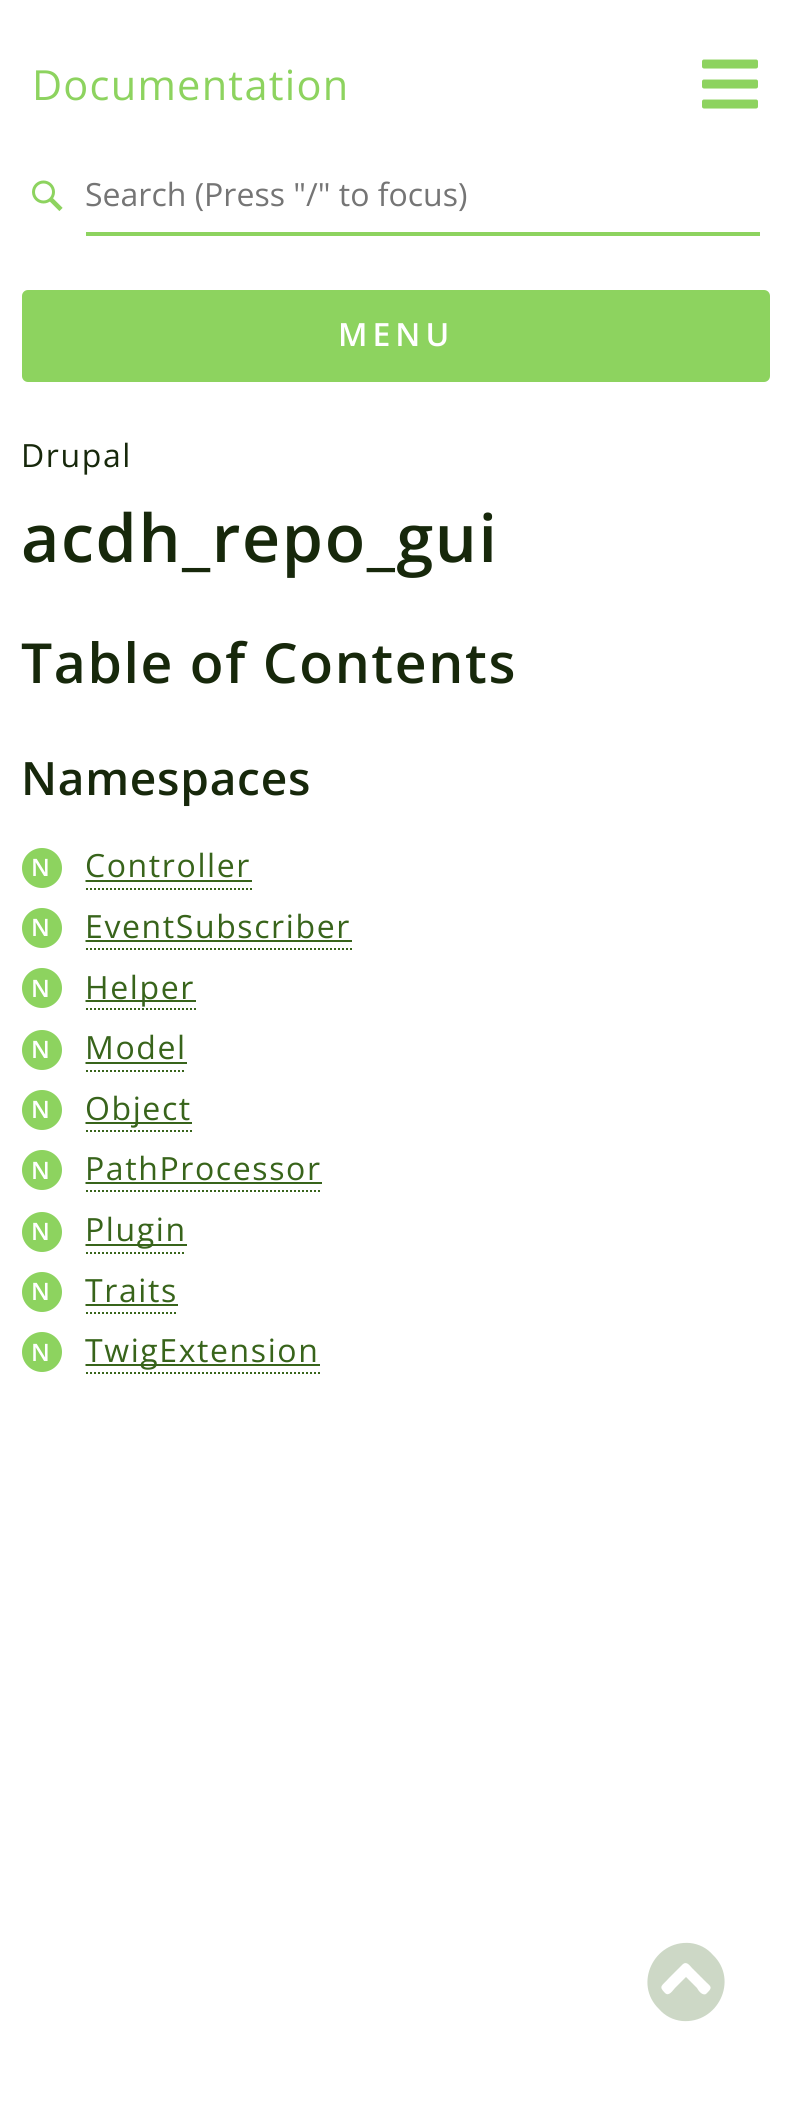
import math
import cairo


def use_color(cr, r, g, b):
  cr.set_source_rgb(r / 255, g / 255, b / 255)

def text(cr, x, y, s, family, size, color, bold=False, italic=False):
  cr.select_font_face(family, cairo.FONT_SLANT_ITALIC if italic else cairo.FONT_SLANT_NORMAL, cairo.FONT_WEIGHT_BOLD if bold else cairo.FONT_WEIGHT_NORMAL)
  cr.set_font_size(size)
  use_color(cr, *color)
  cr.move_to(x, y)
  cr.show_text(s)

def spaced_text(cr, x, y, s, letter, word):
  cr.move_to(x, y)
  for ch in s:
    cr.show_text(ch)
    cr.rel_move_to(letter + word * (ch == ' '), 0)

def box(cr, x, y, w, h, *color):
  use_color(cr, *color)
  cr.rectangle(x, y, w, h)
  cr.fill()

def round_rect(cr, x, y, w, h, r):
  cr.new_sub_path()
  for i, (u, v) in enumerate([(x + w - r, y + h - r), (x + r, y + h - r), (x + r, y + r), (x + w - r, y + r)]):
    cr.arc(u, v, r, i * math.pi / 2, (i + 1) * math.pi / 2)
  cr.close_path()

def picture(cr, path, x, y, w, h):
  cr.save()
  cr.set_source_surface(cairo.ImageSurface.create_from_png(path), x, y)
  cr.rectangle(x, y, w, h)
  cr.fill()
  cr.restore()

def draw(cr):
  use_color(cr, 255, 255, 255)
  cr.paint()
  picture(cr, "img_01.png", 702, 59, 56, 50)
  cr.arc(43.5, 192, 10, 0, 2 * math.pi)
  use_color(cr, 141, 211, 95)
  cr.set_line_width(3)
  cr.stroke()
  cr.new_path()
  cr.move_to(51, 199.5)
  cr.line_to(61, 209.5)
  cr.set_line_width(4.6)
  cr.stroke()
  box(cr, 86, 232, 674, 4, 141, 211, 95)
  round_rect(cr, 22, 290, 748, 92, 6)
  cr.fill()
  cr.arc(42, 868, 20, 0, 2 * math.pi)
  cr.fill()
  cr.new_path()
  cr.move_to(86, 889)
  cr.line_to(252, 889)
  use_color(cr, 56, 100, 27)
  cr.set_line_width(2)
  cr.set_dash([2, 2])
  cr.stroke()
  cr.new_path()
  cr.move_to(85.5, 881)
  cr.line_to(251.5, 881)
  cr.stroke()
  box(cr, 86, 880, 166, 2, 56, 100, 27)
  use_color(cr, 141, 211, 95)
  cr.arc(42, 928, 20, 0, 2 * math.pi)
  cr.fill()
  cr.new_path()
  cr.move_to(86, 949)
  cr.line_to(352, 949)
  use_color(cr, 56, 100, 27)
  cr.stroke()
  cr.new_path()
  cr.move_to(85.5, 941)
  cr.line_to(351, 941)
  cr.stroke()
  box(cr, 86, 940, 266, 2, 56, 100, 27)
  use_color(cr, 141, 211, 95)
  cr.arc(42, 988, 20, 0, 2 * math.pi)
  cr.fill()
  cr.new_path()
  cr.move_to(86, 1009)
  cr.line_to(196, 1009)
  use_color(cr, 56, 100, 27)
  cr.stroke()
  cr.new_path()
  cr.move_to(85.5, 1001)
  cr.line_to(195, 1001)
  cr.stroke()
  box(cr, 86, 1000, 110, 2, 56, 100, 27)
  use_color(cr, 141, 211, 95)
  cr.arc(42, 1050, 20, 0, 2 * math.pi)
  cr.fill()
  cr.new_path()
  cr.move_to(86, 1071)
  cr.line_to(186, 1071)
  use_color(cr, 56, 100, 27)
  cr.stroke()
  cr.new_path()
  cr.move_to(85.5, 1063)
  cr.line_to(187, 1063)
  cr.stroke()
  box(cr, 86, 1062, 100, 2, 56, 100, 27)
  use_color(cr, 141, 211, 95)
  cr.arc(42, 1110, 20, 0, 2 * math.pi)
  cr.fill()
  cr.new_path()
  cr.move_to(86, 1131)
  cr.line_to(192, 1131)
  use_color(cr, 56, 100, 27)
  cr.stroke()
  cr.new_path()
  cr.move_to(85.5, 1123)
  cr.line_to(192, 1123)
  cr.stroke()
  box(cr, 86, 1122, 106, 2, 56, 100, 27)
  use_color(cr, 141, 211, 95)
  cr.arc(42, 1170, 20, 0, 2 * math.pi)
  cr.fill()
  cr.new_path()
  cr.move_to(86, 1191)
  cr.line_to(322, 1191)
  use_color(cr, 56, 100, 27)
  cr.stroke()
  cr.new_path()
  cr.move_to(85.5, 1183)
  cr.line_to(322, 1183)
  cr.stroke()
  box(cr, 86, 1182, 236, 2, 56, 100, 27)
  use_color(cr, 141, 211, 95)
  cr.arc(42, 1232, 20, 0, 2 * math.pi)
  cr.fill()
  cr.new_path()
  cr.move_to(86, 1253)
  cr.line_to(186, 1253)
  use_color(cr, 56, 100, 27)
  cr.stroke()
  cr.new_path()
  cr.move_to(85.5, 1245)
  cr.line_to(187, 1245)
  cr.stroke()
  box(cr, 86, 1244, 100, 2, 56, 100, 27)
  use_color(cr, 141, 211, 95)
  cr.arc(42, 1292, 20, 0, 2 * math.pi)
  cr.fill()
  cr.new_path()
  cr.move_to(86, 1313)
  cr.line_to(178, 1313)
  use_color(cr, 56, 100, 27)
  cr.stroke()
  cr.new_path()
  cr.move_to(85.5, 1305)
  cr.line_to(178, 1305)
  cr.stroke()
  box(cr, 86, 1304, 92, 2, 56, 100, 27)
  use_color(cr, 141, 211, 95)
  cr.arc(42, 1352, 20, 0, 2 * math.pi)
  cr.fill()
  cr.new_path()
  cr.move_to(86, 1373)
  cr.line_to(320, 1373)
  use_color(cr, 56, 100, 27)
  cr.stroke()
  cr.new_path()
  cr.move_to(85.5, 1365)
  cr.line_to(320, 1365)
  cr.stroke()
  box(cr, 86, 1364, 234, 2, 56, 100, 27)
  use_color(cr, 205, 216, 198)
  cr.new_path()
  cr.move_to(659, 2009)
  cr.curve_to(633, 1984, 654, 1940, 690, 1943)
  cr.curve_to(699, 1944, 707, 1948, 713, 1955)
  cr.curve_to(739, 1980, 718, 2024, 682, 2021)
  cr.curve_to(673, 2020, 665, 2016, 659, 2009)
  cr.close_path()
  cr.move_to(683, 1964)
  cr.line_to(669, 1978)
  cr.curve_to(662, 1986, 658, 1986, 665, 1993)
  cr.curve_to(669, 1997, 673, 1990, 675, 1988)
  cr.line_to(686, 1977)
  cr.line_to(697, 1988)
  cr.curve_to(698, 1990, 702, 1996, 706, 1994)
  cr.line_to(708, 1992)
  cr.curve_to(713, 1987, 710, 1986, 706, 1982)
  cr.line_to(692, 1968)
  cr.curve_to(690, 1966, 687, 1961, 683, 1964)
  cr.close_path()
  cr.fill()
  cr.select_font_face("Open Sans")
  cr.set_font_size(41.5)
  use_color(cr, 141, 211, 95)
  spaced_text(cr, 32, 100, "Documentation", 1.25, 0)
  text(cr, 85, 206, "Search (Press \"/\" to focus)", "Open Sans", 32, (117, 117, 117))
  cr.select_font_face("Open Sans SemiBold")
  use_color(cr, 255, 255, 255)
  spaced_text(cr, 338, 346, "MENU", 5, 0)
  cr.select_font_face("Open Sans")
  use_color(cr, 23, 40, 11)
  spaced_text(cr, 21, 467, "Drupal", 1.6, 0)
  cr.select_font_face("Open Sans SemiBold")
  cr.set_font_size(66.25)
  spaced_text(cr, 21, 562, "acdh_repo_gui", 1.6, 0)
  cr.set_font_size(55.25)
  spaced_text(cr, 21, 683, "Table of Contents", 1.6, 0)
  cr.set_font_size(46)
  spaced_text(cr, 21, 795, "Namespaces", 0.75, 0)
  cr.set_font_size(24)
  use_color(cr, 255, 255, 255)
  spaced_text(cr, 31, 876, "N", 1.6, 0)
  cr.select_font_face("Open Sans")
  cr.set_font_size(32)
  use_color(cr, 56, 100, 27)
  spaced_text(cr, 85, 877, "Controller", 1.6, 0)
  cr.select_font_face("Open Sans SemiBold")
  cr.set_font_size(24)
  use_color(cr, 255, 255, 255)
  spaced_text(cr, 31, 936, "N", 1.6, 0)
  cr.select_font_face("Open Sans")
  cr.set_font_size(32)
  use_color(cr, 56, 100, 27)
  spaced_text(cr, 85, 938, "EventSubscriber", 1.6, 0)
  cr.select_font_face("Open Sans SemiBold")
  cr.set_font_size(24)
  use_color(cr, 255, 255, 255)
  spaced_text(cr, 31, 997, "N", 1.6, 0)
  cr.select_font_face("Open Sans")
  cr.set_font_size(32)
  use_color(cr, 56, 100, 27)
  spaced_text(cr, 85, 999, "Helper", 1.6, 0)
  cr.select_font_face("Open Sans SemiBold")
  cr.set_font_size(24)
  use_color(cr, 255, 255, 255)
  spaced_text(cr, 31, 1058, "N", 1.6, 0)
  cr.select_font_face("Open Sans")
  cr.set_font_size(32)
  use_color(cr, 56, 100, 27)
  spaced_text(cr, 85, 1059, "Model", 1.6, 0)
  cr.select_font_face("Open Sans SemiBold")
  cr.set_font_size(24)
  use_color(cr, 255, 255, 255)
  spaced_text(cr, 31, 1118, "N", 1.6, 0)
  cr.select_font_face("Open Sans")
  cr.set_font_size(32)
  use_color(cr, 56, 100, 27)
  spaced_text(cr, 85, 1120, "Object", 1.6, 0)
  cr.select_font_face("Open Sans SemiBold")
  cr.set_font_size(24)
  use_color(cr, 255, 255, 255)
  spaced_text(cr, 31, 1179, "N", 1.6, 0)
  cr.select_font_face("Open Sans")
  cr.set_font_size(32)
  use_color(cr, 56, 100, 27)
  spaced_text(cr, 85, 1180, "PathProcessor", 1.6, 0)
  cr.select_font_face("Open Sans SemiBold")
  cr.set_font_size(24)
  use_color(cr, 255, 255, 255)
  spaced_text(cr, 31, 1240, "N", 1.6, 0)
  cr.select_font_face("Open Sans")
  cr.set_font_size(32)
  use_color(cr, 56, 100, 27)
  spaced_text(cr, 85, 1241, "Plugin", 1.6, 0)
  cr.select_font_face("Open Sans SemiBold")
  cr.set_font_size(24)
  use_color(cr, 255, 255, 255)
  spaced_text(cr, 31, 1300, "N", 1.6, 0)
  cr.select_font_face("Open Sans")
  cr.set_font_size(32)
  use_color(cr, 56, 100, 27)
  spaced_text(cr, 85, 1302, "Traits", 1.6, 0)
  cr.select_font_face("Open Sans SemiBold")
  cr.set_font_size(24)
  use_color(cr, 255, 255, 255)
  spaced_text(cr, 31, 1361, "N", 1.6, 0)
  cr.select_font_face("Open Sans")
  cr.set_font_size(32)
  use_color(cr, 56, 100, 27)
  spaced_text(cr, 85, 1362, "TwigExtension", 1.6, 0)


surface = cairo.ImageSurface(cairo.FORMAT_RGB24, 791, 2110)
cr = cairo.Context(surface)
options = cairo.FontOptions()
options.set_hint_metrics(cairo.HINT_METRICS_OFF)
options.set_hint_style(cairo.HINT_STYLE_NONE)
cr.set_font_options(options)
cr.set_miter_limit(4)
draw(cr)
surface.write_to_png("out.png")
